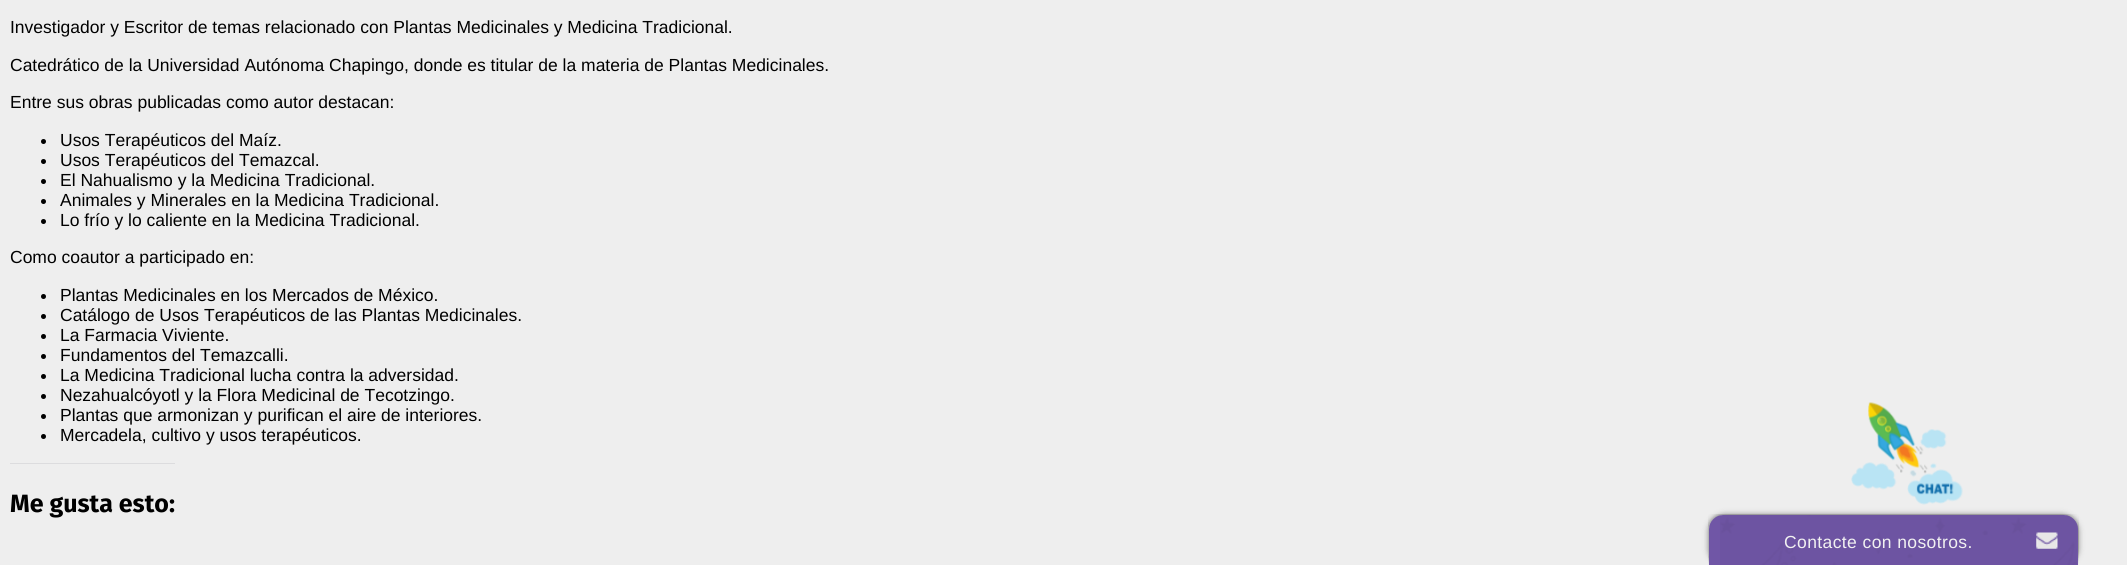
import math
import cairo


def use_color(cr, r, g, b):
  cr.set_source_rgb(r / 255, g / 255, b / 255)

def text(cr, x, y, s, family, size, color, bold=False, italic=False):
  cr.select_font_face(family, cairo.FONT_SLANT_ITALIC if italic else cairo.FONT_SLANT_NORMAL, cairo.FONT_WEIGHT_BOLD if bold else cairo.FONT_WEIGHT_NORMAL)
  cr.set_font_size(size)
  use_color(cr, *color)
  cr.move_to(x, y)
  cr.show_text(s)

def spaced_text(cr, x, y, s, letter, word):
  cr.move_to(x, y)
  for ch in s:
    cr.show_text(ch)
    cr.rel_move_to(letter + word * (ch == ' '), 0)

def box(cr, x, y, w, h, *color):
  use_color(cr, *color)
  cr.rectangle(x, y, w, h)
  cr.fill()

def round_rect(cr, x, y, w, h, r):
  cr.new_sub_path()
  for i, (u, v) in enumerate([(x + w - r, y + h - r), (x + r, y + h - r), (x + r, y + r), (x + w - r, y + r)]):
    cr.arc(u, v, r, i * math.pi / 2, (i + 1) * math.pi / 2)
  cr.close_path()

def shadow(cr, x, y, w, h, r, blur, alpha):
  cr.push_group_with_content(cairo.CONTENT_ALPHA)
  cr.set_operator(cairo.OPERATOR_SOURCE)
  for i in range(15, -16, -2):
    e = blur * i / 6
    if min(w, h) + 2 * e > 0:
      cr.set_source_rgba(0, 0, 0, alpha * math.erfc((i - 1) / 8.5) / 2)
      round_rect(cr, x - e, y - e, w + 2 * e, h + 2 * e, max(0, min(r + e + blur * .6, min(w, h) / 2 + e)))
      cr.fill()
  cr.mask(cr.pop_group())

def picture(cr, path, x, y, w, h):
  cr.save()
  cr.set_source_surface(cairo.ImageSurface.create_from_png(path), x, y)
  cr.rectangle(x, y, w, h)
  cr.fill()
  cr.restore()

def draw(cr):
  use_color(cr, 238, 238, 238)
  cr.paint()
  use_color(cr, 0, 0, 0)
  cr.arc(43.5, 141.5, 2.5, 0, 2 * math.pi)
  cr.fill()
  cr.arc(43.5, 161.5, 2.5, 0, 2 * math.pi)
  cr.fill()
  cr.arc(43.5, 181.5, 2.5, 0, 2 * math.pi)
  cr.fill()
  cr.arc(43.5, 201.5, 2.5, 0, 2 * math.pi)
  cr.fill()
  cr.arc(43.5, 221.5, 2.5, 0, 2 * math.pi)
  cr.fill()
  cr.arc(43.5, 296.5, 2.5, 0, 2 * math.pi)
  cr.fill()
  cr.arc(43.5, 316.5, 2.5, 0, 2 * math.pi)
  cr.fill()
  cr.arc(43.5, 336.5, 2.5, 0, 2 * math.pi)
  cr.fill()
  cr.arc(43.5, 356.5, 2.5, 0, 2 * math.pi)
  cr.fill()
  cr.arc(43.5, 376.5, 2.5, 0, 2 * math.pi)
  cr.fill()
  cr.arc(43.5, 396.5, 2.5, 0, 2 * math.pi)
  cr.fill()
  cr.arc(43.5, 416.5, 2.5, 0, 2 * math.pi)
  cr.fill()
  cr.arc(43.5, 436.5, 2.5, 0, 2 * math.pi)
  cr.fill()
  box(cr, 10, 463, 165, 1, 220, 220, 222)
  picture(cr, "img_01.png", 1851, 402, 112, 103)
  use_color(cr, 119, 119, 119)
  shadow(cr, 1709, 515, 369, 50, 16, 3, 1)
  picture(cr, "img_02.png", 1708, 514, 371, 51)
  use_color(cr, 112, 86, 166)
  cr.new_path()
  cr.move_to(1723, 515)
  cr.line_to(2064, 515)
  cr.curve_to(2071.5, 515, 2078, 521.5, 2078, 529)
  cr.line_to(2078, 565)
  cr.line_to(1709, 565)
  cr.line_to(1709, 529)
  cr.curve_to(1709, 521.5, 1715.5, 515, 1723, 515)
  cr.close_path()
  cr.fill()
  picture(cr, "img_03.png", 1720, 515, 357, 50)
  picture(cr, "img_04.png", 2036, 532, 22, 17)
  text(cr, 10, 33, "Investigador y Escritor de temas relacionado con Plantas Medicinales y Medicina Tradicional.", "Liberation Sans", 17.5, (0, 0, 0))
  text(cr, 10, 71, "Catedrático de la Universidad Autónoma Chapingo, donde es titular de la materia de Plantas Medicinales.", "Liberation Sans", 17.5, (0, 0, 0))
  text(cr, 10, 108, "Entre sus obras publicadas como autor destacan:", "Liberation Sans", 17.5, (0, 0, 0))
  text(cr, 60, 146, "Usos Terapéuticos del Maíz.", "Liberation Sans", 17.5, (0, 0, 0))
  text(cr, 60, 166, "Usos Terapéuticos del Temazcal.", "Liberation Sans", 17.5, (0, 0, 0))
  text(cr, 60, 186, "El Nahualismo y la Medicina Tradicional.", "Liberation Sans", 17.5, (0, 0, 0))
  text(cr, 60, 206, "Animales y Minerales en la Medicina Tradicional.", "Liberation Sans", 17.5, (0, 0, 0))
  text(cr, 60, 226, "Lo frío y lo caliente en la Medicina Tradicional.", "Liberation Sans", 17.5, (0, 0, 0))
  text(cr, 10, 263, "Como coautor a participado en:", "Liberation Sans", 17.5, (0, 0, 0))
  text(cr, 60, 301, "Plantas Medicinales en los Mercados de México.", "Liberation Sans", 17.5, (0, 0, 0))
  text(cr, 60, 321, "Catálogo de Usos Terapéuticos de las Plantas Medicinales.", "Liberation Sans", 17.5, (0, 0, 0))
  text(cr, 60, 341, "La Farmacia Viviente.", "Liberation Sans", 17.5, (0, 0, 0))
  text(cr, 60, 361, "Fundamentos del Temazcalli.", "Liberation Sans", 17.5, (0, 0, 0))
  text(cr, 60, 381, "La Medicina Tradicional lucha contra la adversidad.", "Liberation Sans", 17.5, (0, 0, 0))
  text(cr, 60, 401, "Nezahualcóyotl y la Flora Medicinal de Tecotzingo.", "Liberation Sans", 17.5, (0, 0, 0))
  text(cr, 60, 421, "Plantas que armonizan y purifican el aire de interiores.", "Liberation Sans", 17.5, (0, 0, 0))
  text(cr, 60, 441, "Mercadela, cultivo y usos terapéuticos.", "Liberation Sans", 17.5, (0, 0, 0))
  text(cr, 10, 512, "Me gusta esto:", "Fira Sans", 25, (0, 0, 0), bold=True)
  cr.select_font_face("Liberation Sans")
  cr.set_font_size(17.5)
  use_color(cr, 241, 241, 241)
  spaced_text(cr, 1784, 548, "Contacte con nosotros.", 0.4, 0)


surface = cairo.ImageSurface(cairo.FORMAT_RGB24, 2127, 565)
cr = cairo.Context(surface)
options = cairo.FontOptions()
options.set_hint_metrics(cairo.HINT_METRICS_OFF)
options.set_hint_style(cairo.HINT_STYLE_NONE)
cr.set_font_options(options)
cr.set_miter_limit(4)
draw(cr)
surface.write_to_png("out.png")
